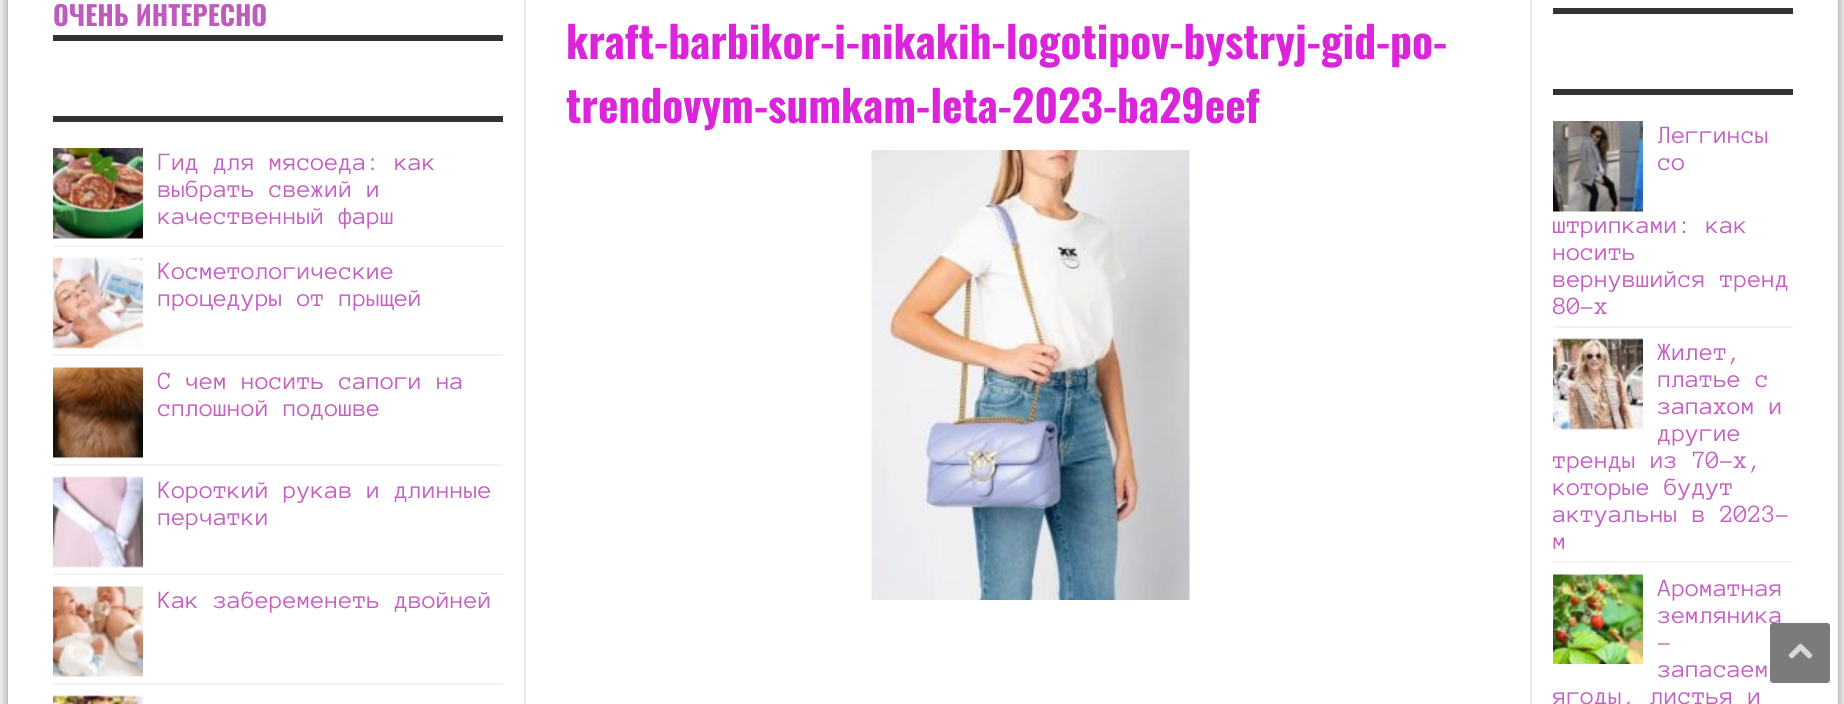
import math
import cairo


def use_color(cr, r, g, b):
  cr.set_source_rgb(r / 255, g / 255, b / 255)

def text(cr, x, y, s, family, size, color, bold=False, italic=False):
  cr.select_font_face(family, cairo.FONT_SLANT_ITALIC if italic else cairo.FONT_SLANT_NORMAL, cairo.FONT_WEIGHT_BOLD if bold else cairo.FONT_WEIGHT_NORMAL)
  cr.set_font_size(size)
  use_color(cr, *color)
  cr.move_to(x, y)
  cr.show_text(s)

def box(cr, x, y, w, h, *color):
  use_color(cr, *color)
  cr.rectangle(x, y, w, h)
  cr.fill()

def round_rect(cr, x, y, w, h, r):
  cr.new_sub_path()
  for i, (u, v) in enumerate([(x + w - r, y + h - r), (x + r, y + h - r), (x + r, y + r), (x + w - r, y + r)]):
    cr.arc(u, v, r, i * math.pi / 2, (i + 1) * math.pi / 2)
  cr.close_path()

def shadow(cr, x, y, w, h, r, blur, alpha):
  cr.push_group_with_content(cairo.CONTENT_ALPHA)
  cr.set_operator(cairo.OPERATOR_SOURCE)
  for i in range(15, -16, -2):
    e = blur * i / 6
    if min(w, h) + 2 * e > 0:
      cr.set_source_rgba(0, 0, 0, alpha * math.erfc((i - 1) / 8.5) / 2)
      round_rect(cr, x - e, y - e, w + 2 * e, h + 2 * e, max(0, min(r + e + blur * .6, min(w, h) / 2 + e)))
      cr.fill()
  cr.mask(cr.pop_group())

def picture(cr, path, x, y, w, h):
  cr.save()
  cr.set_source_surface(cairo.ImageSurface.create_from_png(path), x, y)
  cr.rectangle(x, y, w, h)
  cr.fill()
  cr.restore()

def draw(cr):
  use_color(cr, 255, 255, 255)
  cr.paint()
  use_color(cr, 0, 0, 0)
  shadow(cr, 8, -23, 1830, 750, 0, 7.5, 0.5)
  box(cr, 8, 0, 1830, 704, 255, 255, 255)
  box(cr, 524, 0, 2, 704, 234, 234, 234)
  box(cr, 53, 35, 450, 6, 51, 51, 51)
  box(cr, 53, 116, 450, 6, 51, 51, 51)
  box(cr, 53, 245, 450, 2, 242, 242, 242)
  picture(cr, "img_01.png", 53, 148, 90, 91)
  box(cr, 53, 354, 450, 2, 242, 242, 242)
  picture(cr, "img_02.png", 53, 257, 90, 92)
  box(cr, 53, 464, 450, 2, 242, 242, 242)
  picture(cr, "img_03.png", 53, 367, 90, 91)
  box(cr, 53, 573, 450, 2, 242, 242, 242)
  picture(cr, "img_04.png", 53, 476, 90, 92)
  box(cr, 53, 683, 450, 2, 242, 242, 242)
  picture(cr, "img_05.png", 53, 586, 90, 91)
  picture(cr, "img_06.png", 53, 695, 90, 9)
  picture(cr, "img_07.png", 871, 150, 319, 450)
  box(cr, 1530, 0, 2, 704, 234, 234, 234)
  box(cr, 1553, 8, 240, 6, 51, 51, 51)
  box(cr, 1553, 89, 240, 6, 51, 51, 51)
  box(cr, 1553, 326, 240, 2, 242, 242, 242)
  picture(cr, "img_08.png", 1553, 121, 90, 91)
  box(cr, 1553, 561, 240, 2, 242, 242, 242)
  picture(cr, "img_09.png", 1553, 338, 90, 92)
  picture(cr, "img_10.png", 1553, 574, 90, 90)
  text(cr, 53, 26, "ОЧЕНЬ ИНТЕРЕСНО", "Oswald", 27, (191, 90, 191), bold=True)
  text(cr, 158, 170, "Гид для мясоеда: как", "Anonymous Pro", 25.5, (196, 96, 194))
  text(cr, 158, 197, "выбрать свежий и", "Anonymous Pro", 25.5, (196, 96, 194))
  text(cr, 158, 224, "качественный фарш", "Anonymous Pro", 25.5, (196, 96, 194))
  text(cr, 158, 279, "Косметологические", "Anonymous Pro", 25.5, (196, 96, 194))
  text(cr, 158, 306, "процедуры от прыщей", "Anonymous Pro", 25.5, (196, 96, 194))
  text(cr, 158, 389, "С чем носить сапоги на", "Anonymous Pro", 25.5, (196, 96, 194))
  text(cr, 158, 416, "сплошной подошве", "Anonymous Pro", 25.5, (196, 96, 194))
  text(cr, 158, 498, "Короткий рукав и длинные", "Anonymous Pro", 25.5, (196, 96, 194))
  text(cr, 158, 525, "перчатки", "Anonymous Pro", 25.5, (196, 96, 194))
  text(cr, 158, 608, "Как забеременеть двойней", "Anonymous Pro", 25.5, (196, 96, 194))
  text(cr, 566, 59, "kraft-barbikor-i-nikakih-logotipov-bystryj-gid-po-", "Oswald", 43.5, (219, 37, 219), bold=True)
  text(cr, 566, 123, "trendovym-sumkam-leta-2023-ba29eef", "Oswald", 43.5, (219, 37, 219), bold=True)
  text(cr, 1658, 143, "Леггинсы", "Anonymous Pro", 25.5, (196, 96, 194))
  text(cr, 1658, 170, "со", "Anonymous Pro", 25.5, (196, 96, 194))
  cr.save()
  cr.rectangle(1553, 110, 240, 216)
  cr.clip()
  text(cr, 1553, 233, "штрипками: как", "Anonymous Pro", 25.5, (196, 96, 194))
  cr.restore()
  text(cr, 1553, 260, "носить", "Anonymous Pro", 25.5, (196, 96, 194))
  text(cr, 1553, 287, "вернувшийся тренд", "Anonymous Pro", 25.5, (196, 96, 194))
  cr.save()
  cr.rectangle(1553, 110, 240, 216)
  cr.clip()
  text(cr, 1553, 314, "80-х", "Anonymous Pro", 25.5, (196, 96, 194))
  cr.restore()
  text(cr, 1658, 360, "Жилет,", "Anonymous Pro", 25.5, (196, 96, 194))
  text(cr, 1658, 387, "платье с", "Anonymous Pro", 25.5, (196, 96, 194))
  text(cr, 1658, 414, "запахом и", "Anonymous Pro", 25.5, (196, 96, 194))
  text(cr, 1658, 441, "другие", "Anonymous Pro", 25.5, (196, 96, 194))
  cr.save()
  cr.rectangle(1553, 327, 240, 234)
  cr.clip()
  text(cr, 1553, 468, "тренды из 70-х,", "Anonymous Pro", 25.5, (196, 96, 194))
  cr.restore()
  text(cr, 1553, 495, "которые будут", "Anonymous Pro", 25.5, (196, 96, 194))
  cr.save()
  cr.rectangle(1553, 327, 240, 234)
  cr.clip()
  text(cr, 1553, 522, "актуальны в 2023-", "Anonymous Pro", 25.5, (196, 96, 194))
  cr.restore()
  text(cr, 1553, 549, "м", "Anonymous Pro", 25.5, (196, 96, 194))
  text(cr, 1658, 596, "Ароматная", "Anonymous Pro", 25.5, (196, 96, 194))
  text(cr, 1658, 623, "земляника", "Anonymous Pro", 25.5, (196, 96, 194))
  text(cr, 1658, 650, "–", "Anonymous Pro", 25.5, (196, 96, 194))
  text(cr, 1658, 677, "запасаем", "Anonymous Pro", 25.5, (196, 96, 194))
  cr.save()
  cr.rectangle(1553, 563, 240, 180)
  cr.clip()
  text(cr, 1553, 704, "ягоды, листья и", "Anonymous Pro", 25.5, (196, 96, 194))
  cr.restore()
  cr.set_source_rgba(0.267, 0.267, 0.267, 0.7)
  round_rect(cr, 1770, 623, 60, 60, 3)
  cr.fill()
  picture(cr, "img_11.png", 1788, 643, 25, 16)


surface = cairo.ImageSurface(cairo.FORMAT_RGB24, 1844, 704)
cr = cairo.Context(surface)
options = cairo.FontOptions()
options.set_hint_metrics(cairo.HINT_METRICS_OFF)
options.set_hint_style(cairo.HINT_STYLE_NONE)
cr.set_font_options(options)
cr.set_miter_limit(4)
draw(cr)
surface.write_to_png("out.png")
